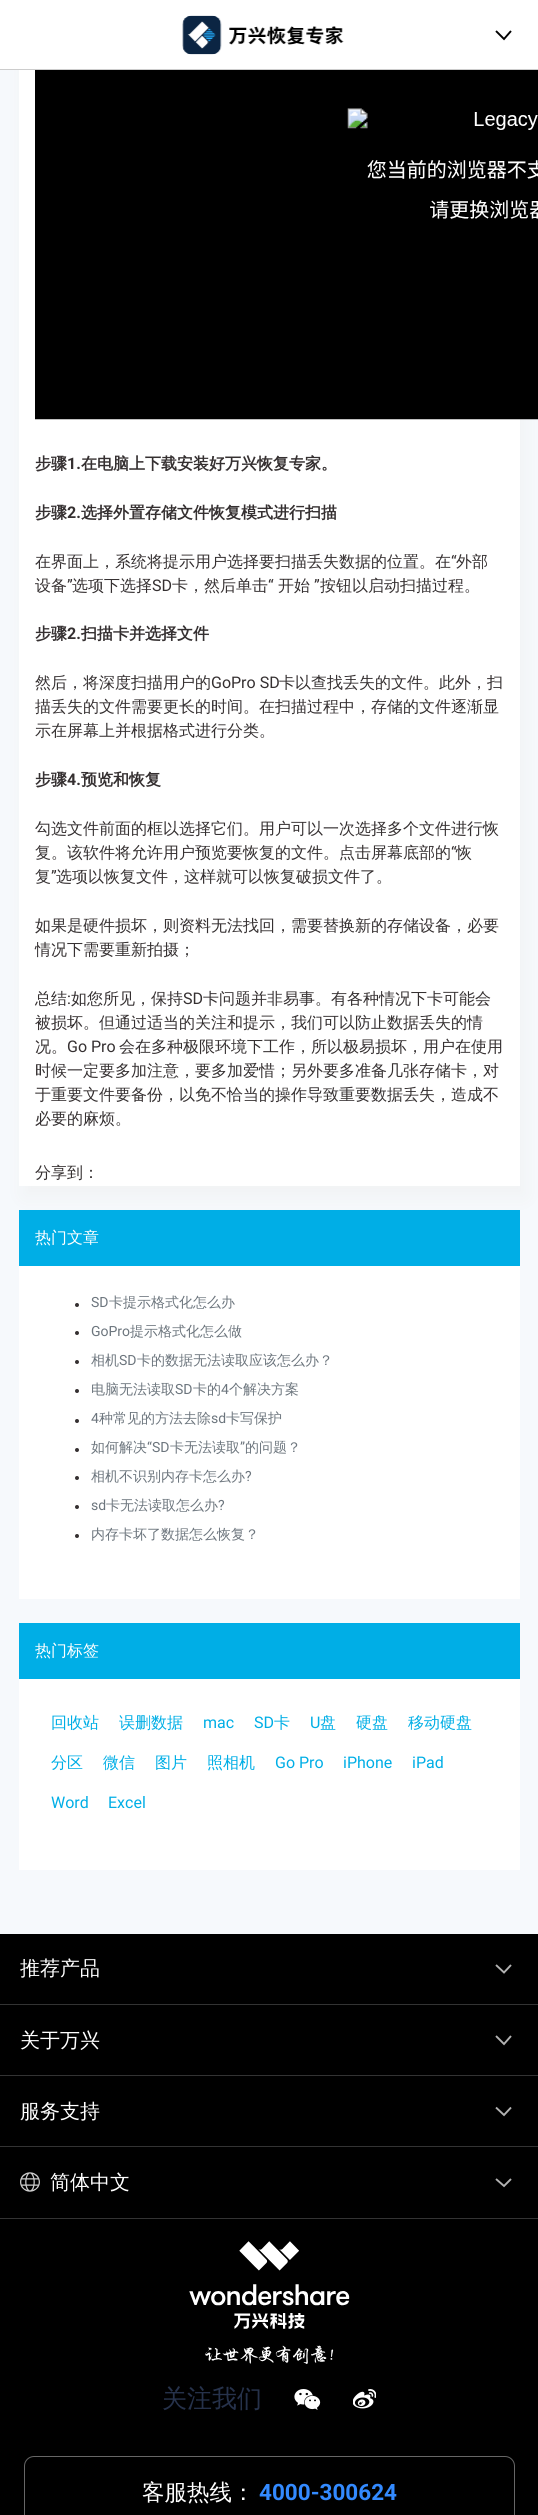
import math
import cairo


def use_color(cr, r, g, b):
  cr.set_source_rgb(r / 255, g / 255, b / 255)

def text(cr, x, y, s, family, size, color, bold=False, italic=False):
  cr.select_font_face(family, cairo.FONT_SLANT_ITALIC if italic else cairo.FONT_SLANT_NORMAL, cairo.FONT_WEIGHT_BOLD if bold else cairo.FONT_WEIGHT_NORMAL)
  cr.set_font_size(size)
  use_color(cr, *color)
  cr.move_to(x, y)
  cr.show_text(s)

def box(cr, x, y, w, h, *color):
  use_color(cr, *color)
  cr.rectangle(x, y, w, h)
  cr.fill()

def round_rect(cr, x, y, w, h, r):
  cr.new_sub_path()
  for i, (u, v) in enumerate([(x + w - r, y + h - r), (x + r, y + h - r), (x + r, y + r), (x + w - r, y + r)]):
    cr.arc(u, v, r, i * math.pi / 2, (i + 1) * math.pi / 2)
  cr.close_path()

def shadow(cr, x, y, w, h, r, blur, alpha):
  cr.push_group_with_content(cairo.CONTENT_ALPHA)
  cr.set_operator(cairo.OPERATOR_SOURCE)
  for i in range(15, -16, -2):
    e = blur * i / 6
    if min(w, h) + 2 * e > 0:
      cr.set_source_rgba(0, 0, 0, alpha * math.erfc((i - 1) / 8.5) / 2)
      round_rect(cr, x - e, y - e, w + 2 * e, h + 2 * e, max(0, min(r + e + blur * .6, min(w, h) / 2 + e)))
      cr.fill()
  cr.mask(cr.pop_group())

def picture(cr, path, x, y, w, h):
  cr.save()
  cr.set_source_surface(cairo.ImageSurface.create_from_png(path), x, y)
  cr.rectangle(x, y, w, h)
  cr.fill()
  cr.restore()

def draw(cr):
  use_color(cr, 0, 0, 0)
  cr.paint()
  box(cr, 0, 70, 538, 1864, 246, 249, 252)
  use_color(cr, 235, 235, 235)
  shadow(cr, 24, -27, 501, 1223, 0, 9, 0.5)
  box(cr, 0, 0, 538, 69, 255, 255, 255)
  box(cr, 0, 69, 538, 1, 204, 204, 204)
  picture(cr, "img_01.png", 182, 15, 162, 40)
  cr.new_path()
  cr.move_to(496, 31)
  cr.line_to(504, 39)
  cr.line_to(511, 31)
  use_color(cr, 0, 0, 0)
  cr.set_line_width(1.9)
  cr.stroke()
  box(cr, 19, 70, 501, 1116, 255, 255, 255)
  picture(cr, "img_02.png", 35, 70, 503, 350)
  box(cr, 19, 1266, 501, 333, 255, 255, 255)
  box(cr, 19, 1210, 501, 56, 0, 174, 230)
  use_color(cr, 53, 48, 49)
  cr.arc(77, 1305, 2, 0, 2 * math.pi)
  cr.fill()
  cr.arc(77, 1333, 2, 0, 2 * math.pi)
  cr.fill()
  cr.arc(77, 1362, 2, 0, 2 * math.pi)
  cr.fill()
  cr.arc(77, 1391, 2, 0, 2 * math.pi)
  cr.fill()
  cr.arc(77, 1421, 2, 0, 2 * math.pi)
  cr.fill()
  cr.arc(77, 1450, 2, 0, 2 * math.pi)
  cr.fill()
  cr.arc(77, 1478, 2, 0, 2 * math.pi)
  cr.fill()
  cr.arc(77, 1507, 2, 0, 2 * math.pi)
  cr.fill()
  cr.arc(77, 1536, 2, 0, 2 * math.pi)
  cr.fill()
  box(cr, 19, 1679, 501, 191, 255, 255, 255)
  box(cr, 19, 1623, 501, 56, 0, 174, 230)
  box(cr, 0, 2004, 538, 1, 51, 51, 51)
  cr.new_path()
  cr.move_to(496, 1965)
  cr.line_to(504, 1972.5)
  cr.line_to(511, 1965)
  use_color(cr, 179, 179, 179)
  cr.stroke()
  box(cr, 0, 2075, 538, 1, 51, 51, 51)
  cr.new_path()
  cr.move_to(496, 2036)
  cr.line_to(504, 2044)
  cr.line_to(511, 2036)
  use_color(cr, 179, 179, 179)
  cr.stroke()
  box(cr, 0, 2146, 538, 1, 51, 51, 51)
  cr.new_path()
  cr.move_to(496, 2107.5)
  cr.line_to(504, 2115)
  cr.line_to(511, 2107.5)
  use_color(cr, 179, 179, 179)
  cr.stroke()
  box(cr, 0, 2218, 538, 1, 51, 51, 51)
  picture(cr, "img_03.png", 20, 2172, 20, 20)
  cr.new_path()
  cr.move_to(496, 2179)
  cr.line_to(504, 2186)
  cr.line_to(511, 2179)
  use_color(cr, 179, 179, 179)
  cr.stroke()
  picture(cr, "img_04.png", 294, 2389, 27, 21)
  picture(cr, "img_05.png", 353, 2389, 23, 20)
  picture(cr, "img_06.png", 189, 2241, 161, 123)
  round_rect(cr, 24.5, 2456.5, 490, 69, 9.5)
  use_color(cr, 102, 102, 102)
  cr.set_line_width(1)
  cr.stroke()
  text(cr, 35, 469, "步骤", "WenQuanYi Zen Hei", 16, (53, 48, 49), bold=True)
  text(cr, 67, 469, "1.", "Roboto", 16, (53, 48, 49), bold=True)
  text(cr, 81, 469, "在电脑上下载安装好万兴恢复专家。", "WenQuanYi Zen Hei", 16, (53, 48, 49), bold=True)
  text(cr, 35, 518, "步骤", "WenQuanYi Zen Hei", 16, (53, 48, 49), bold=True)
  text(cr, 67, 518, "2.", "Roboto", 16, (53, 48, 49), bold=True)
  text(cr, 81, 518, "选择外置存储文件恢复模式进行扫描", "WenQuanYi Zen Hei", 16, (53, 48, 49), bold=True)
  text(cr, 35, 567, "在界面上，系统将提示用户选择要扫描丢失数据的位置。在", "WenQuanYi Zen Hei Medium", 16, (53, 48, 49))
  text(cr, 451, 567, "“", "Roboto", 16, (53, 48, 49))
  text(cr, 456, 567, "外部", "WenQuanYi Zen Hei Medium", 16, (53, 48, 49))
  text(cr, 35, 591, "设备", "WenQuanYi Zen Hei Medium", 16, (53, 48, 49))
  text(cr, 67, 591, "”", "Roboto", 16, (53, 48, 49))
  text(cr, 72, 591, "选项下选择", "WenQuanYi Zen Hei Medium", 16, (53, 48, 49))
  text(cr, 152, 591, "SD", "Roboto", 16, (53, 48, 49))
  text(cr, 172, 591, "卡，然后单击", "WenQuanYi Zen Hei Medium", 16, (53, 48, 49))
  text(cr, 268, 591, "“", "Roboto", 16, (53, 48, 49))
  text(cr, 278, 591, "开始", "WenQuanYi Zen Hei Medium", 16, (53, 48, 49))
  text(cr, 314, 591, "”", "Roboto", 16, (53, 48, 49))
  text(cr, 320, 591, "按钮以启动扫描过程。", "WenQuanYi Zen Hei Medium", 16, (53, 48, 49))
  text(cr, 35, 639, "步骤", "WenQuanYi Zen Hei", 16, (53, 48, 49), bold=True)
  text(cr, 67, 639, "2.", "Roboto", 16, (53, 48, 49), bold=True)
  text(cr, 81, 639, "扫描卡并选择文件", "WenQuanYi Zen Hei", 16, (53, 48, 49), bold=True)
  text(cr, 35, 688, "然后，将深度扫描用户的", "WenQuanYi Zen Hei Medium", 16, (53, 48, 49))
  text(cr, 211, 688, "GoPro SD", "Roboto", 16, (53, 48, 49))
  text(cr, 279, 688, "卡以查找丢失的文件。此外，扫", "WenQuanYi Zen Hei Medium", 16, (53, 48, 49))
  text(cr, 35, 712, "描丢失的文件需要更长的时间。在扫描过程中，存储的文件逐渐显", "WenQuanYi Zen Hei Medium", 16, (53, 48, 49))
  text(cr, 35, 736, "示在屏幕上并根据格式进行分类。", "WenQuanYi Zen Hei Medium", 16, (53, 48, 49))
  text(cr, 35, 785, "步骤", "WenQuanYi Zen Hei", 16, (53, 48, 49), bold=True)
  text(cr, 67, 785, "4.", "Roboto", 16, (53, 48, 49), bold=True)
  text(cr, 81, 785, "预览和恢复", "WenQuanYi Zen Hei", 16, (53, 48, 49), bold=True)
  text(cr, 35, 834, "勾选文件前面的框以选择它们。用户可以一次选择多个文件进行恢", "WenQuanYi Zen Hei Medium", 16, (53, 48, 49))
  text(cr, 35, 858, "复。该软件将允许用户预览要恢复的文件。点击屏幕底部的", "WenQuanYi Zen Hei Medium", 16, (53, 48, 49))
  text(cr, 451, 858, "“", "Roboto", 16, (53, 48, 49))
  text(cr, 456, 858, "恢", "WenQuanYi Zen Hei Medium", 16, (53, 48, 49))
  text(cr, 35, 882, "复", "WenQuanYi Zen Hei Medium", 16, (53, 48, 49))
  text(cr, 51, 882, "”", "Roboto", 16, (53, 48, 49))
  text(cr, 56, 882, "选项以恢复文件，这样就可以恢复破损文件了。", "WenQuanYi Zen Hei Medium", 16, (53, 48, 49))
  text(cr, 35, 931, "如果是硬件损坏，则资料无法找回，需要替换新的存储设备，必要", "WenQuanYi Zen Hei Medium", 16, (53, 48, 49))
  text(cr, 35, 955, "情况下需要重新拍摄；", "WenQuanYi Zen Hei Medium", 16, (53, 48, 49))
  text(cr, 35, 1004, "总结", "WenQuanYi Zen Hei Medium", 16, (53, 48, 49))
  text(cr, 67, 1004, ":", "Roboto", 16, (53, 48, 49))
  text(cr, 71, 1004, "如您所见，保持", "WenQuanYi Zen Hei Medium", 16, (53, 48, 49))
  text(cr, 183, 1004, "SD", "Roboto", 16, (53, 48, 49))
  text(cr, 203, 1004, "卡问题并非易事。有各种情况下卡可能会", "WenQuanYi Zen Hei Medium", 16, (53, 48, 49))
  text(cr, 35, 1028, "被损坏。但通过适当的关注和提示，我们可以防止数据丢失的情", "WenQuanYi Zen Hei Medium", 16, (53, 48, 49))
  text(cr, 35, 1052, "况。", "WenQuanYi Zen Hei Medium", 16, (53, 48, 49))
  text(cr, 67, 1052, "Go Pro", "Roboto", 16, (53, 48, 49))
  text(cr, 119, 1052, "会在多种极限环境下工作，所以极易损坏，用户在使用", "WenQuanYi Zen Hei Medium", 16, (53, 48, 49))
  text(cr, 35, 1076, "时候一定要多加注意，要多加爱惜；另外要多准备几张存储卡，对", "WenQuanYi Zen Hei Medium", 16, (53, 48, 49))
  text(cr, 35, 1100, "于重要文件要备份，以免不恰当的操作导致重要数据丢失，造成不", "WenQuanYi Zen Hei Medium", 16, (53, 48, 49))
  text(cr, 35, 1124, "必要的麻烦。", "WenQuanYi Zen Hei Medium", 16, (53, 48, 49))
  text(cr, 35, 1178, "分享到：", "WenQuanYi Zen Hei Medium", 16, (53, 48, 49))
  text(cr, 35, 1243, "热门文章", "WenQuanYi Zen Hei Medium", 16, (255, 255, 255))
  text(cr, 91, 1307, "SD", "Roboto", 14, (108, 117, 125))
  text(cr, 109, 1307, "卡提示格式化怎么办", "WenQuanYi Zen Hei Medium", 14, (108, 117, 125))
  text(cr, 91, 1336, "GoPro", "Roboto", 14, (108, 117, 125))
  text(cr, 130, 1336, "提示格式化怎么做", "WenQuanYi Zen Hei Medium", 14, (108, 117, 125))
  text(cr, 91, 1365, "相机", "WenQuanYi Zen Hei Medium", 14, (108, 117, 125))
  text(cr, 119, 1365, "SD", "Roboto", 14, (108, 117, 125))
  text(cr, 137, 1365, "卡的数据无法读取应该怎么办？", "WenQuanYi Zen Hei Medium", 14, (108, 117, 125))
  text(cr, 91, 1394, "电脑无法读取", "WenQuanYi Zen Hei Medium", 14, (108, 117, 125))
  text(cr, 175, 1394, "SD", "Roboto", 14, (108, 117, 125))
  text(cr, 193, 1394, "卡的", "WenQuanYi Zen Hei Medium", 14, (108, 117, 125))
  text(cr, 221, 1394, "4", "Roboto", 14, (108, 117, 125))
  text(cr, 229, 1394, "个解决方案", "WenQuanYi Zen Hei Medium", 14, (108, 117, 125))
  text(cr, 91, 1423, "4", "Roboto", 14, (108, 117, 125))
  text(cr, 99, 1423, "种常见的方法去除", "WenQuanYi Zen Hei Medium", 14, (108, 117, 125))
  text(cr, 211, 1423, "sd", "Roboto", 14, (108, 117, 125))
  text(cr, 226, 1423, "卡写保护", "WenQuanYi Zen Hei Medium", 14, (108, 117, 125))
  text(cr, 91, 1452, "如何解决", "WenQuanYi Zen Hei Medium", 14, (108, 117, 125))
  text(cr, 147, 1452, "“SD", "Roboto", 14, (108, 117, 125))
  text(cr, 170, 1452, "卡无法读取", "WenQuanYi Zen Hei Medium", 14, (108, 117, 125))
  text(cr, 240, 1452, "”", "Roboto", 14, (108, 117, 125))
  text(cr, 245, 1452, "的问题？", "WenQuanYi Zen Hei Medium", 14, (108, 117, 125))
  text(cr, 91, 1481, "相机不识别内存卡怎么办", "WenQuanYi Zen Hei Medium", 14, (108, 117, 125))
  text(cr, 245, 1481, "?", "Roboto", 14, (108, 117, 125))
  text(cr, 91, 1510, "sd", "Roboto", 14, (108, 117, 125))
  text(cr, 106, 1510, "卡无法读取怎么办", "WenQuanYi Zen Hei Medium", 14, (108, 117, 125))
  text(cr, 218, 1510, "?", "Roboto", 14, (108, 117, 125))
  text(cr, 91, 1539, "内存卡坏了数据怎么恢复？", "WenQuanYi Zen Hei Medium", 14, (108, 117, 125))
  text(cr, 35, 1656, "热门标签", "WenQuanYi Zen Hei Medium", 16, (255, 255, 255))
  text(cr, 51, 1728, "回收站", "WenQuanYi Zen Hei Medium", 16, (0, 174, 230))
  text(cr, 119, 1728, "误删数据", "WenQuanYi Zen Hei Medium", 16, (0, 174, 230))
  text(cr, 203, 1728, "mac", "Roboto", 16, (0, 174, 230))
  text(cr, 254, 1728, "SD", "Roboto", 16, (0, 174, 230))
  text(cr, 274, 1728, "卡", "WenQuanYi Zen Hei Medium", 16, (0, 174, 230))
  text(cr, 310, 1728, "U", "Roboto", 16, (0, 174, 230))
  text(cr, 320, 1728, "盘", "WenQuanYi Zen Hei Medium", 16, (0, 174, 230))
  text(cr, 356, 1728, "硬盘", "WenQuanYi Zen Hei Medium", 16, (0, 174, 230))
  text(cr, 408, 1728, "移动硬盘", "WenQuanYi Zen Hei Medium", 16, (0, 174, 230))
  text(cr, 51, 1768, "分区", "WenQuanYi Zen Hei Medium", 16, (0, 174, 230))
  text(cr, 103, 1768, "微信", "WenQuanYi Zen Hei Medium", 16, (0, 174, 230))
  text(cr, 155, 1768, "图片", "WenQuanYi Zen Hei Medium", 16, (0, 174, 230))
  text(cr, 207, 1768, "照相机", "WenQuanYi Zen Hei Medium", 16, (0, 174, 230))
  text(cr, 275, 1768, "Go Pro", "Roboto", 16, (0, 174, 230))
  text(cr, 343, 1768, "iPhone", "Roboto", 16, (0, 174, 230))
  text(cr, 412, 1768, "iPad", "Roboto", 16, (0, 174, 230))
  text(cr, 51, 1808, "Word", "Roboto", 16, (0, 174, 230))
  text(cr, 108, 1808, "Excel", "Roboto", 16, (0, 174, 230))
  text(cr, 20, 1975, "推荐产品", "WenQuanYi Zen Hei Medium", 20, (255, 255, 255))
  text(cr, 20, 2047, "关于万兴", "WenQuanYi Zen Hei Medium", 20, (255, 255, 255))
  text(cr, 20, 2118, "服务支持", "WenQuanYi Zen Hei Medium", 20, (255, 255, 255))
  text(cr, 50, 2189, "简体中文", "WenQuanYi Zen Hei Medium", 20, (255, 255, 255))
  text(cr, 162, 2407, "关注我们", "WenQuanYi Zen Hei Medium", 25, (38, 50, 75))
  text(cr, 142, 2500, "客服热线：", "WenQuanYi Zen Hei Medium", 22.5, (255, 255, 255))
  text(cr, 259, 2500, "4000-300624", "Roboto", 22.5, (51, 138, 255), bold=True)


surface = cairo.ImageSurface(cairo.FORMAT_RGB24, 538, 2515)
cr = cairo.Context(surface)
options = cairo.FontOptions()
options.set_hint_metrics(cairo.HINT_METRICS_OFF)
options.set_hint_style(cairo.HINT_STYLE_NONE)
cr.set_font_options(options)
cr.set_miter_limit(4)
draw(cr)
surface.write_to_png("out.png")
